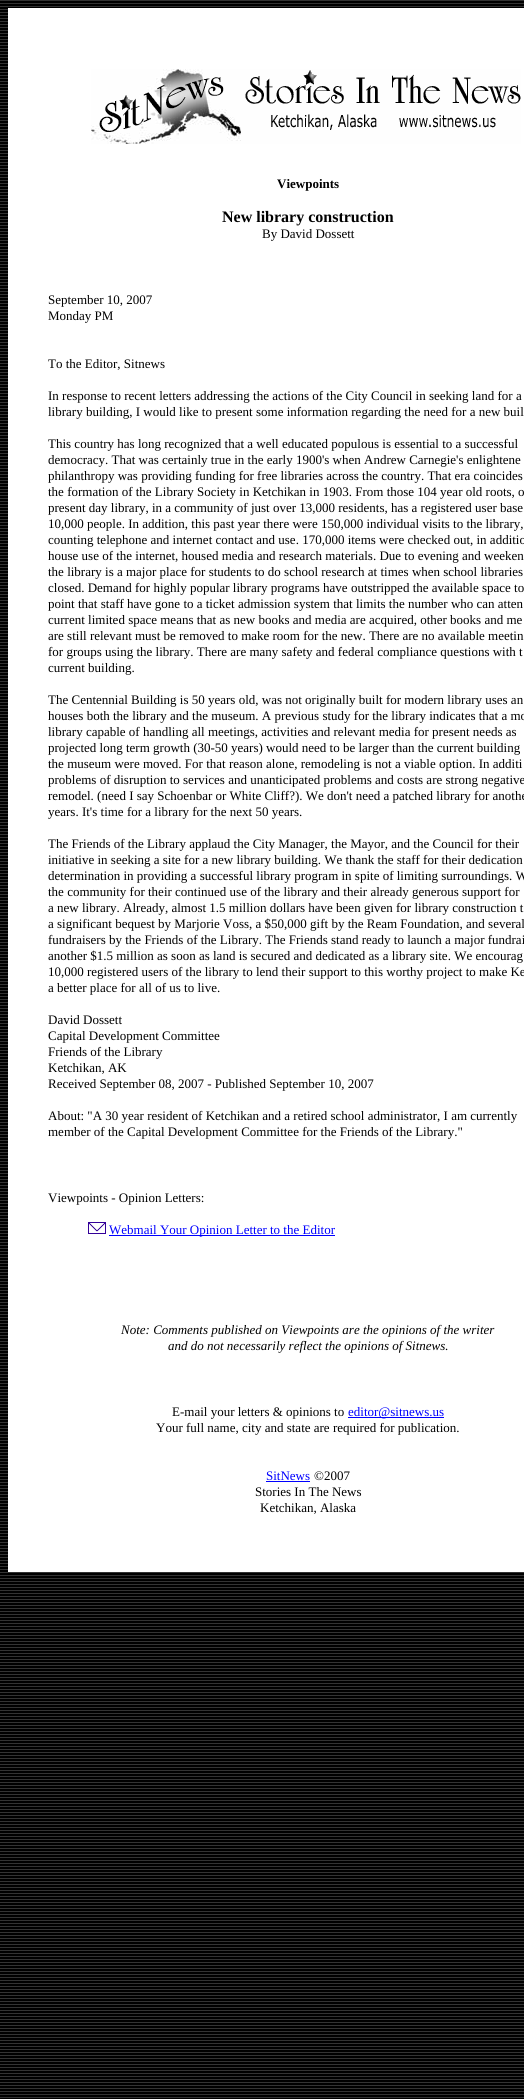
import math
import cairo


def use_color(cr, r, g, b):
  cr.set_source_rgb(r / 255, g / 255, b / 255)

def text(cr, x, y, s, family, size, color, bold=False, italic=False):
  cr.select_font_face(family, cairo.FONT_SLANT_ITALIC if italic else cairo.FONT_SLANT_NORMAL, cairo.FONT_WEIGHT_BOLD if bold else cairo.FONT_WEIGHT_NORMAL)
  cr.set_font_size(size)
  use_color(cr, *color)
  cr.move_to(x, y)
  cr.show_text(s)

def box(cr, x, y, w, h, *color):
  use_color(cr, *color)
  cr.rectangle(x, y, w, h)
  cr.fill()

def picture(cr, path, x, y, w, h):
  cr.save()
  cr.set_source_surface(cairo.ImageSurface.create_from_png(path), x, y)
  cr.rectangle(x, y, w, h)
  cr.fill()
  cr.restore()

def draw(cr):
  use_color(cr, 0, 0, 0)
  cr.paint()
  picture(cr, "img_01.png", 0, 0, 524, 2098)
  box(cr, 8, 8, 516, 1564, 255, 255, 255)
  picture(cr, "img_02.png", 91, 69, 430, 75)
  picture(cr, "img_03.png", 88, 1222, 18, 12)
  box(cr, 109, 1235, 226, 1, 0, 0, 255)
  box(cr, 348, 1417, 96, 1, 0, 0, 255)
  box(cr, 266, 1481, 44, 1, 0, 0, 255)
  text(cr, 277, 188, "Viewpoints", "Liberation Serif", 13, (0, 0, 0), bold=True)
  text(cr, 222, 222, "New library construction", "Liberation Serif", 16, (0, 0, 0), bold=True)
  text(cr, 262, 238, "By David Dossett", "Liberation Serif", 13, (0, 0, 0))
  text(cr, 48, 304, "September 10, 2007", "Liberation Serif", 13, (0, 0, 0))
  text(cr, 48, 320, "Monday PM", "Liberation Serif", 13, (0, 0, 0))
  text(cr, 48, 368, "To the Editor, Sitnews", "Liberation Serif", 13, (0, 0, 0))
  text(cr, 48, 400, "In response to recent letters addressing the actions of the City Council in seeking land for a", "Liberation Serif", 13, (0, 0, 0))
  text(cr, 48, 416, "library building, I would like to present some information regarding the need for a new buil", "Liberation Serif", 13, (0, 0, 0))
  text(cr, 48, 448, "This country has long recognized that a well educated populous is essential to a successful", "Liberation Serif", 13, (0, 0, 0))
  text(cr, 48, 464, "democracy. That was certainly true in the early 1900's when Andrew Carnegie's enlightene", "Liberation Serif", 13, (0, 0, 0))
  text(cr, 48, 480, "philanthropy was providing funding for free libraries across the country. That era coincides", "Liberation Serif", 13, (0, 0, 0))
  text(cr, 48, 496, "the formation of the Library Society in Ketchikan in 1903. From those 104 year old roots, o", "Liberation Serif", 13, (0, 0, 0))
  text(cr, 48, 512, "present day library, in a community of just over 13,000 residents, has a registered user base", "Liberation Serif", 13, (0, 0, 0))
  text(cr, 48, 528, "10,000 people. In addition, this past year there were 150,000 individual visits to the library,", "Liberation Serif", 13, (0, 0, 0))
  text(cr, 48, 544, "counting telephone and internet contact and use. 170,000 items were checked out, in additio", "Liberation Serif", 13, (0, 0, 0))
  text(cr, 48, 560, "house use of the internet, housed media and research materials. Due to evening and weeken", "Liberation Serif", 13, (0, 0, 0))
  text(cr, 48, 576, "the library is a major place for students to do school research at times when school libraries", "Liberation Serif", 13, (0, 0, 0))
  text(cr, 48, 592, "closed. Demand for highly popular library programs have outstripped the available space to", "Liberation Serif", 13, (0, 0, 0))
  text(cr, 48, 608, "point that staff have gone to a ticket admission system that limits the number who can atten", "Liberation Serif", 13, (0, 0, 0))
  text(cr, 48, 624, "current limited space means that as new books and media are acquired, other books and me", "Liberation Serif", 13, (0, 0, 0))
  text(cr, 48, 640, "are still relevant must be removed to make room for the new. There are no available meetin", "Liberation Serif", 13, (0, 0, 0))
  text(cr, 48, 656, "for groups using the library. There are many safety and federal compliance questions with t", "Liberation Serif", 13, (0, 0, 0))
  text(cr, 48, 672, "current building.", "Liberation Serif", 13, (0, 0, 0))
  text(cr, 48, 704, "The Centennial Building is 50 years old, was not originally built for modern library uses an", "Liberation Serif", 13, (0, 0, 0))
  text(cr, 48, 720, "houses both the library and the museum. A previous study for the library indicates that a mo", "Liberation Serif", 13, (0, 0, 0))
  text(cr, 48, 736, "library capable of handling all meetings, activities and relevant media for present needs as", "Liberation Serif", 13, (0, 0, 0))
  text(cr, 48, 752, "projected long term growth (30-50 years) would need to be larger than the current building", "Liberation Serif", 13, (0, 0, 0))
  text(cr, 48, 768, "the museum were moved. For that reason alone, remodeling is not a viable option. In additi", "Liberation Serif", 13, (0, 0, 0))
  text(cr, 48, 784, "problems of disruption to services and unanticipated problems and costs are strong negative", "Liberation Serif", 13, (0, 0, 0))
  text(cr, 48, 800, "remodel. (need I say Schoenbar or White Cliff?). We don't need a patched library for anothe", "Liberation Serif", 13, (0, 0, 0))
  text(cr, 48, 816, "years. It's time for a library for the next 50 years.", "Liberation Serif", 13, (0, 0, 0))
  text(cr, 48, 848, "The Friends of the Library applaud the City Manager, the Mayor, and the Council for their", "Liberation Serif", 13, (0, 0, 0))
  text(cr, 48, 864, "initiative in seeking a site for a new library building. We thank the staff for their dedication", "Liberation Serif", 13, (0, 0, 0))
  text(cr, 48, 880, "determination in providing a successful library program in spite of limiting surroundings. W", "Liberation Serif", 13, (0, 0, 0))
  text(cr, 48, 896, "the community for their continued use of the library and their already generous support for", "Liberation Serif", 13, (0, 0, 0))
  text(cr, 48, 912, "a new library. Already, almost 1.5 million dollars have been given for library construction t", "Liberation Serif", 13, (0, 0, 0))
  text(cr, 48, 928, "a significant bequest by Marjorie Voss, a $50,000 gift by the Ream Foundation, and several", "Liberation Serif", 13, (0, 0, 0))
  text(cr, 48, 944, "fundraisers by the Friends of the Library. The Friends stand ready to launch a major fundrai", "Liberation Serif", 13, (0, 0, 0))
  text(cr, 48, 960, "another $1.5 million as soon as land is secured and dedicated as a library site. We encourag", "Liberation Serif", 13, (0, 0, 0))
  text(cr, 48, 976, "10,000 registered users of the library to lend their support to this worthy project to make Ke", "Liberation Serif", 13, (0, 0, 0))
  text(cr, 48, 992, "a better place for all of us to live.", "Liberation Serif", 13, (0, 0, 0))
  text(cr, 48, 1024, "David Dossett", "Liberation Serif", 13, (0, 0, 0))
  text(cr, 48, 1040, "Capital Development Committee", "Liberation Serif", 13, (0, 0, 0))
  text(cr, 48, 1056, "Friends of the Library", "Liberation Serif", 13, (0, 0, 0))
  text(cr, 48, 1072, "Ketchikan, AK", "Liberation Serif", 13, (0, 0, 0))
  text(cr, 48, 1088, "Received September 08, 2007 - Published September 10, 2007", "Liberation Serif", 13, (0, 0, 0))
  text(cr, 48, 1120, "About: \"A 30 year resident of Ketchikan and a retired school administrator, I am currently", "Liberation Serif", 13, (0, 0, 0))
  text(cr, 48, 1136, "member of the Capital Development Committee for the Friends of the Library.\"", "Liberation Serif", 13, (0, 0, 0))
  text(cr, 48, 1202, "Viewpoints - Opinion Letters:", "Liberation Serif", 13, (0, 0, 0))
  text(cr, 109, 1234, "Webmail Your Opinion Letter to the Editor", "Liberation Serif", 13, (0, 0, 255))
  text(cr, 121, 1334, "Note: Comments published on Viewpoints are the opinions of the writer", "Liberation Serif", 13, (0, 0, 0), italic=True)
  text(cr, 168, 1350, "and do not necessarily reflect the opinions of Sitnews.", "Liberation Serif", 13, (0, 0, 0), italic=True)
  text(cr, 172, 1416, "E-mail your letters & opinions to", "Liberation Serif", 13, (0, 0, 0))
  text(cr, 348, 1416, "editor@sitnews.us", "Liberation Serif", 13, (0, 0, 255))
  text(cr, 156, 1432, "Your full name, city and state are required for publication.", "Liberation Serif", 13, (0, 0, 0))
  text(cr, 266, 1480, "SitNews", "Liberation Serif", 13, (0, 0, 255))
  text(cr, 314, 1480, "©2007", "Liberation Serif", 13, (0, 0, 0))
  text(cr, 255, 1496, "Stories In The News", "Liberation Serif", 13, (0, 0, 0))
  text(cr, 260, 1512, "Ketchikan, Alaska", "Liberation Serif", 13, (0, 0, 0))


surface = cairo.ImageSurface(cairo.FORMAT_RGB24, 524, 2099)
cr = cairo.Context(surface)
options = cairo.FontOptions()
options.set_hint_metrics(cairo.HINT_METRICS_OFF)
options.set_hint_style(cairo.HINT_STYLE_NONE)
cr.set_font_options(options)
cr.set_miter_limit(4)
draw(cr)
surface.write_to_png("out.png")
